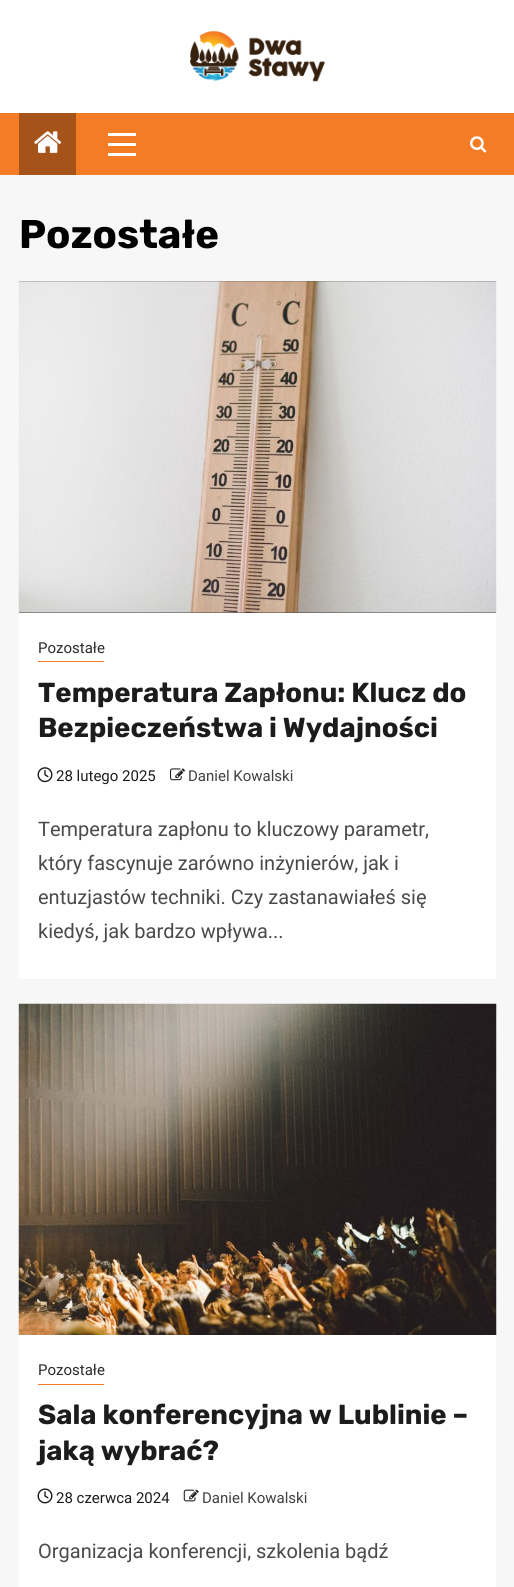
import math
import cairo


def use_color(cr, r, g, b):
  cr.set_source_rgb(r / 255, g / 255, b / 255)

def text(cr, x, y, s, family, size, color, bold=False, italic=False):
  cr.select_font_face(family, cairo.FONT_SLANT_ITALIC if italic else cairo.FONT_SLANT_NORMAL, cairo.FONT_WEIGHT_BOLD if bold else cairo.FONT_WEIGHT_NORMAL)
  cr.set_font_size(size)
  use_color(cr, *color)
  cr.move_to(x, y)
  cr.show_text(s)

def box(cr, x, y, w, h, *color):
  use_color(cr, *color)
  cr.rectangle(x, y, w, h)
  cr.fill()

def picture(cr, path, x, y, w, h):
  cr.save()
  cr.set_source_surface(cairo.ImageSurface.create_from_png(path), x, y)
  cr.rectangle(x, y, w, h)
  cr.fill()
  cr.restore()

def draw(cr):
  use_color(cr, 247, 247, 247)
  cr.paint()
  box(cr, 0, 0, 514, 113, 255, 255, 255)
  picture(cr, "img_01.png", 190, 31, 135, 51)
  box(cr, 0, 113, 514, 62, 244, 124, 36)
  box(cr, 19, 113, 57, 62, 165, 83, 24)
  picture(cr, "img_02.png", 34, 131, 28, 22)
  box(cr, 108, 143, 28, 3, 255, 255, 255)
  box(cr, 108, 133, 28, 3, 255, 255, 255)
  box(cr, 108, 153, 28, 3, 255, 255, 255)
  picture(cr, "img_03.png", 470, 136, 17, 17)
  box(cr, 19, 613, 477, 366, 255, 255, 255)
  box(cr, 19, 281, 477, 332, 64, 64, 64)
  picture(cr, "img_04.png", 18, 281, 479, 332)
  box(cr, 38, 661, 66, 1, 244, 124, 36)
  picture(cr, "img_05.png", 37, 767, 16, 16)
  picture(cr, "img_06.png", 170, 768, 15, 13)
  box(cr, 19, 1335, 477, 252, 255, 255, 255)
  picture(cr, "img_07.png", 18, 1003, 479, 332)
  box(cr, 38, 1384, 66, 1, 244, 124, 36)
  picture(cr, "img_08.png", 37, 1488, 16, 16)
  picture(cr, "img_09.png", 183, 1489, 16, 13)
  text(cr, 19, 248, "Pozostałe", "Rubik", 40, (0, 0, 0), bold=True)
  text(cr, 38, 653, "Pozostałe", "Roboto", 15, (43, 43, 43))
  text(cr, 38, 702, "Temperatura Zapłonu: Klucz do", "Rubik", 27.5, (28, 28, 28), bold=True)
  text(cr, 38, 737, "Bezpieczeństwa i Wydajności", "Rubik", 27.5, (28, 28, 28), bold=True)
  text(cr, 56, 781, "28 lutego 2025", "Roboto", 15, (28, 28, 28))
  text(cr, 188, 781, "Daniel Kowalski", "Roboto", 15, (64, 64, 64))
  text(cr, 38, 836, "Temperatura zapłonu to kluczowy parametr,", "Roboto", 20, (74, 74, 74))
  text(cr, 38, 870, "który fascynuje zarówno inżynierów, jak i", "Roboto", 20, (74, 74, 74))
  text(cr, 38, 904, "entuzjastów techniki. Czy zastanawiałeś się", "Roboto", 20, (74, 74, 74))
  text(cr, 38, 938, "kiedyś, jak bardzo wpływa...", "Roboto", 20, (74, 74, 74))
  text(cr, 38, 1375, "Pozostałe", "Roboto", 15, (43, 43, 43))
  text(cr, 38, 1424, "Sala konferencyjna w Lublinie –", "Rubik", 27.5, (28, 28, 28), bold=True)
  text(cr, 38, 1460, "jaką wybrać?", "Rubik", 27.5, (28, 28, 28), bold=True)
  text(cr, 56, 1503, "28 czerwca 2024", "Roboto", 15, (28, 28, 28))
  text(cr, 202, 1503, "Daniel Kowalski", "Roboto", 15, (64, 64, 64))
  text(cr, 38, 1558, "Organizacja konferencji, szkolenia bądź", "Roboto", 20, (74, 74, 74))


surface = cairo.ImageSurface(cairo.FORMAT_RGB24, 514, 1587)
cr = cairo.Context(surface)
options = cairo.FontOptions()
options.set_hint_metrics(cairo.HINT_METRICS_OFF)
options.set_hint_style(cairo.HINT_STYLE_NONE)
cr.set_font_options(options)
cr.set_miter_limit(4)
draw(cr)
surface.write_to_png("out.png")
